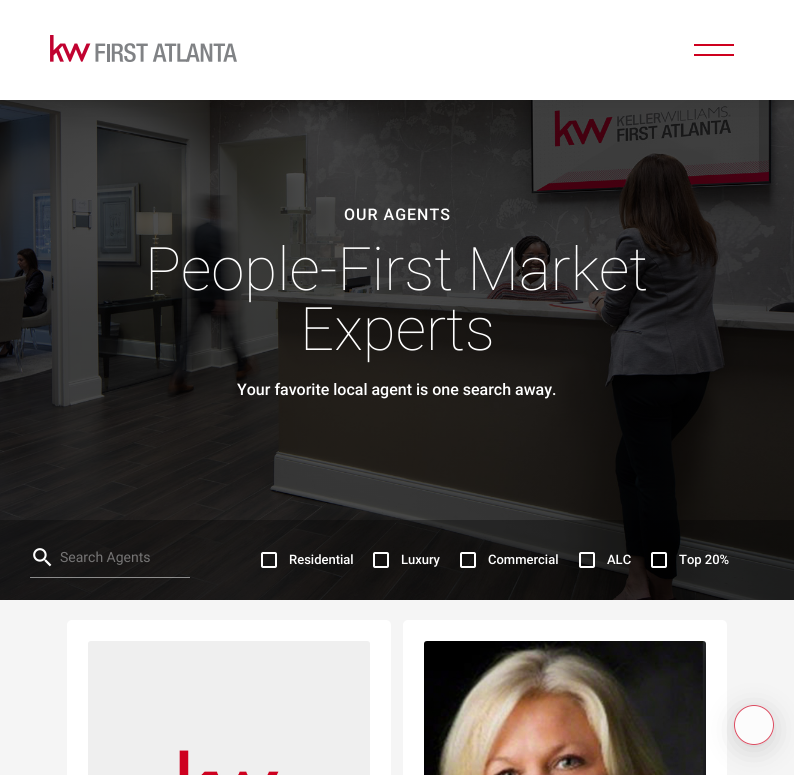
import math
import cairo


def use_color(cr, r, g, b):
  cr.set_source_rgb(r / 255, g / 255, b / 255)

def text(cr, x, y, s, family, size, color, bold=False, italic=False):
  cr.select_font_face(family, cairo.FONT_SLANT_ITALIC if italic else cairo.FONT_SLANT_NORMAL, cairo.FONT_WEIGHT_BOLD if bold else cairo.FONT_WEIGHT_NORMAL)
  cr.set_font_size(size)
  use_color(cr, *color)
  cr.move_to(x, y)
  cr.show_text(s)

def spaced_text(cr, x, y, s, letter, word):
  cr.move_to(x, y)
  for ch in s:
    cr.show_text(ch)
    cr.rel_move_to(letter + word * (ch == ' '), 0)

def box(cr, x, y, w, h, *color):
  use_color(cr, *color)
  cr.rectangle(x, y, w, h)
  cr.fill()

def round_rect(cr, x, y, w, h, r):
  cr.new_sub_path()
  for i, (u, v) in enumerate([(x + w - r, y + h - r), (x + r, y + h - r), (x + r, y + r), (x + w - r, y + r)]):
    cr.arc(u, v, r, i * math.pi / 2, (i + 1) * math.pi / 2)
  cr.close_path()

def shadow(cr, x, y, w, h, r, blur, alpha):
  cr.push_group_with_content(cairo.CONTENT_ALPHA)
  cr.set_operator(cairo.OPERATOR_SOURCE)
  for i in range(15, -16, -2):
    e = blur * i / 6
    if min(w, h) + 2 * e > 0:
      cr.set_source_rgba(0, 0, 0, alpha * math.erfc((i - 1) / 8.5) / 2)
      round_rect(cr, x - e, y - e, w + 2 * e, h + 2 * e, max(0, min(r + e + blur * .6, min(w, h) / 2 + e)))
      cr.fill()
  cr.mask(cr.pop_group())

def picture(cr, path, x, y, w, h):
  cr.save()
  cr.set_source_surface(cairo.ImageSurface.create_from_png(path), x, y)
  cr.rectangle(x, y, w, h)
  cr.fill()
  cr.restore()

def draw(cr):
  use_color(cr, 255, 255, 255)
  cr.paint()
  picture(cr, "img_02.png", 0, 100, 794, 500)
  use_color(cr, 0, 0, 0)
  shadow(cr, 5, 5, 784, 90, 0, 15, 0.15)
  box(cr, 0, 0, 794, 100, 255, 255, 255)
  picture(cr, "img_01.png", 50, 35, 187, 27)
  box(cr, 694, 44, 40, 2, 206, 0, 30)
  box(cr, 694, 54, 40, 2, 206, 0, 30)
  box(cr, 0, 600, 794, 175, 245, 245, 245)
  cr.set_source_rgba(0, 0, 0, 0.3)
  cr.rectangle(0, 520, 794, 80)
  cr.fill()
  cr.set_source_rgba(1, 1, 1, 0.5)
  cr.rectangle(30, 577, 160, 1)
  cr.fill()
  picture(cr, "img_03.png", 33, 548, 19, 19)
  round_rect(cr, 262, 553, 14, 14, 1)
  use_color(cr, 255, 255, 255)
  cr.stroke()
  round_rect(cr, 374, 553, 14, 14, 1)
  cr.stroke()
  round_rect(cr, 461, 553, 14, 14, 1)
  cr.stroke()
  round_rect(cr, 580, 553, 14, 14, 1)
  cr.stroke()
  round_rect(cr, 652, 553, 14, 14, 1)
  cr.stroke()
  round_rect(cr, 67, 620, 324, 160, 5)
  cr.fill()
  picture(cr, "img_04.png", 88, 641, 282, 134)
  round_rect(cr, 403, 620, 324, 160, 5)
  cr.fill()
  picture(cr, "img_05.png", 424, 641, 282, 134)
  cr.save()
  cr.set_fill_rule(cairo.FILL_RULE_EVEN_ODD)
  cr.new_path()
  cr.move_to(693, 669)
  cr.line_to(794, 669)
  cr.line_to(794, 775)
  cr.line_to(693, 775)
  cr.close_path()
  cr.move_to(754, 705)
  cr.curve_to(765, 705, 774, 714, 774, 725)
  cr.curve_to(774, 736, 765, 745, 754, 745)
  cr.curve_to(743, 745, 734, 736, 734, 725)
  cr.curve_to(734, 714, 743, 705, 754, 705)
  cr.close_path()
  cr.clip()
  use_color(cr, 0, 0, 0)
  shadow(cr, 739, 715, 30, 30, 15, 15, 0.2)
  cr.restore()
  cr.set_source_rgba(1, 1, 1, 0.7)
  cr.arc(754, 725, 20, 0, 2 * math.pi)
  cr.fill()
  cr.arc(754, 725, 19.5, 0, 2 * math.pi)
  cr.set_source_rgba(0.808, 0, 0.118, 0.7)
  cr.set_line_width(1)
  cr.stroke()
  cr.select_font_face("Roboto Medium")
  cr.set_font_size(16)
  use_color(cr, 255, 255, 255)
  spaced_text(cr, 344, 220, "OUR AGENTS", 1, 0)
  text(cr, 145, 290, "People-First Market", "Roboto Thin", 60, (255, 255, 255))
  text(cr, 300, 350, "Experts", "Roboto Thin", 60, (255, 255, 255))
  text(cr, 237, 395, "Your favorite local agent is one search away.", "Roboto Medium", 16, (255, 255, 255))
  text(cr, 60, 562, "Search Agents", "Roboto", 14, (117, 116, 116))
  text(cr, 289, 564, "Residential", "Roboto Medium", 13, (255, 255, 255))
  text(cr, 401, 564, "Luxury", "Roboto Medium", 13, (255, 255, 255))
  text(cr, 488, 564, "Commercial", "Roboto Medium", 13, (255, 255, 255))
  text(cr, 607, 564, "ALC", "Roboto Medium", 13, (255, 255, 255))
  text(cr, 679, 564, "Top 20%", "Roboto Medium", 13, (255, 255, 255))


surface = cairo.ImageSurface(cairo.FORMAT_RGB24, 794, 775)
cr = cairo.Context(surface)
options = cairo.FontOptions()
options.set_hint_metrics(cairo.HINT_METRICS_OFF)
options.set_hint_style(cairo.HINT_STYLE_NONE)
cr.set_font_options(options)
cr.set_miter_limit(4)
draw(cr)
surface.write_to_png("out.png")
